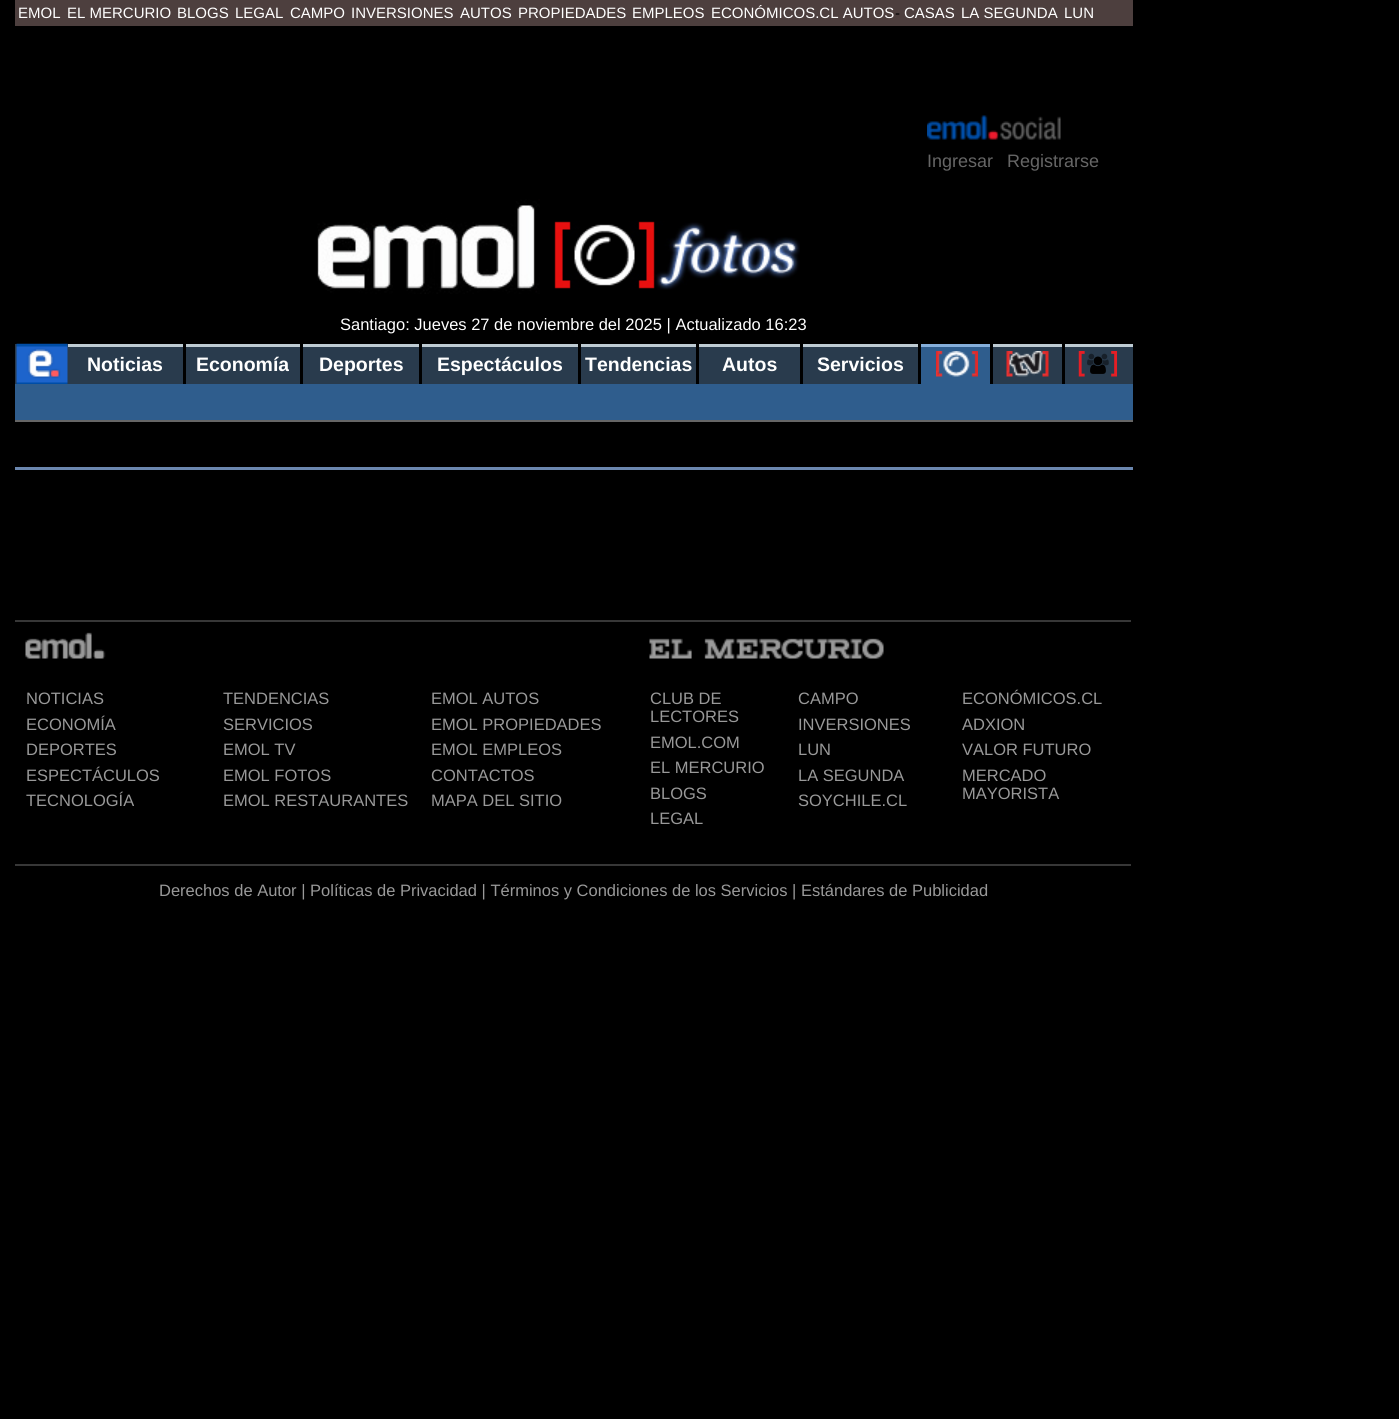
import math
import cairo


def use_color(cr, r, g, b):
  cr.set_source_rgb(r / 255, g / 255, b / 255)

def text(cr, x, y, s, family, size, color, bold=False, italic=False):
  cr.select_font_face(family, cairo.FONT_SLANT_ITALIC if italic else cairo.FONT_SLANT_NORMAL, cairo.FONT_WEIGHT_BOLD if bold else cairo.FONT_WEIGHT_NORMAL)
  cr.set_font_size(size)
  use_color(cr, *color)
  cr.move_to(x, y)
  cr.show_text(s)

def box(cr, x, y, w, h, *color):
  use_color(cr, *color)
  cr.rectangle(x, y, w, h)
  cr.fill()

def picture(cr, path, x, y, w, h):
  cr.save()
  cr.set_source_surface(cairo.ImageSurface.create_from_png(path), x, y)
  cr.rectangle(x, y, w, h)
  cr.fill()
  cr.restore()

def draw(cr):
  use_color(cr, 0, 0, 0)
  cr.paint()
  box(cr, 15, 0, 1118, 26, 77, 63, 62)
  picture(cr, "img_01.png", 927, 115, 134, 25)
  picture(cr, "img_02.png", 317, 199, 223, 95)
  picture(cr, "img_03.png", 554, 221, 246, 69)
  box(cr, 15, 344, 53, 40, 41, 59, 77)
  picture(cr, "img_04.png", 16, 343, 52, 41)
  box(cr, 68, 347, 115, 37, 41, 59, 77)
  box(cr, 68, 344, 115, 3, 190, 203, 211)
  box(cr, 186, 347, 114, 37, 41, 59, 77)
  box(cr, 186, 344, 114, 3, 190, 203, 211)
  box(cr, 303, 347, 116, 37, 41, 59, 77)
  box(cr, 303, 344, 116, 3, 190, 203, 211)
  box(cr, 422, 347, 156, 37, 41, 59, 77)
  box(cr, 422, 344, 156, 3, 190, 203, 211)
  box(cr, 581, 347, 115, 37, 41, 59, 77)
  box(cr, 581, 344, 115, 3, 190, 203, 211)
  box(cr, 699, 347, 101, 37, 41, 59, 77)
  box(cr, 699, 344, 101, 3, 190, 203, 211)
  box(cr, 803, 347, 115, 37, 41, 59, 77)
  box(cr, 803, 344, 115, 3, 190, 203, 211)
  box(cr, 921, 347, 69, 37, 47, 93, 141)
  box(cr, 921, 344, 69, 3, 133, 175, 219)
  picture(cr, "img_05.png", 936, 351, 42, 26)
  box(cr, 993, 347, 69, 37, 41, 59, 77)
  box(cr, 993, 344, 69, 3, 190, 203, 211)
  picture(cr, "img_06.png", 1006, 351, 43, 26)
  box(cr, 1065, 347, 68, 37, 41, 59, 77)
  box(cr, 1065, 344, 68, 3, 190, 203, 211)
  picture(cr, "img_07.png", 1078, 351, 40, 26)
  box(cr, 15, 384, 1118, 36, 47, 93, 141)
  box(cr, 15, 420, 1118, 2, 102, 102, 102)
  box(cr, 15, 467, 1118, 3, 107, 135, 175)
  box(cr, 15, 620, 1116, 2, 55, 55, 55)
  picture(cr, "img_08.png", 25, 632, 81, 27)
  picture(cr, "img_09.png", 649, 638, 235, 21)
  box(cr, 15, 864, 1116, 2, 55, 55, 55)
  text(cr, 18, 18, "EMOL", "Liberation Sans", 15, (255, 255, 255))
  text(cr, 67, 18, "EL MERCURIO", "Liberation Sans", 15, (255, 255, 255))
  text(cr, 177, 18, "BLOGS", "Liberation Sans", 15, (255, 255, 255))
  text(cr, 235, 18, "LEGAL", "Liberation Sans", 15, (255, 255, 255))
  text(cr, 290, 18, "CAMPO", "Liberation Sans", 15, (255, 255, 255))
  text(cr, 351, 18, "INVERSIONES", "Liberation Sans", 15, (255, 255, 255))
  text(cr, 460, 18, "AUTOS", "Liberation Sans", 15, (255, 255, 255))
  text(cr, 518, 18, "PROPIEDADES", "Liberation Sans", 15, (255, 255, 255))
  text(cr, 632, 18, "EMPLEOS", "Liberation Sans", 15, (255, 255, 255))
  text(cr, 711, 18, "ECONÓMICOS.CL AUTOS", "Liberation Sans", 15, (255, 255, 255))
  text(cr, 895, 18, "-", "Liberation Sans", 15, (0, 0, 0))
  text(cr, 904, 18, "CASAS", "Liberation Sans", 15, (255, 255, 255))
  text(cr, 961, 18, "LA SEGUNDA", "Liberation Sans", 15, (255, 255, 255))
  text(cr, 1064, 18, "LUN", "Liberation Sans", 15, (255, 255, 255))
  text(cr, 927, 167, "Ingresar", "Liberation Sans", 18, (102, 102, 102))
  text(cr, 1007, 167, "Registrarse", "Liberation Sans", 18, (102, 102, 102))
  text(cr, 340, 330, "Santiago: Jueves 27 de noviembre del 2025 | Actualizado 16:23", "Liberation Sans", 16.5, (255, 255, 255))
  text(cr, 87, 371, "Noticias", "Liberation Sans", 19.5, (255, 255, 255), bold=True)
  text(cr, 196, 371, "Economía", "Liberation Sans", 19.5, (255, 255, 255), bold=True)
  text(cr, 319, 371, "Deportes", "Liberation Sans", 19.5, (255, 255, 255), bold=True)
  text(cr, 437, 371, "Espectáculos", "Liberation Sans", 19.5, (255, 255, 255), bold=True)
  text(cr, 585, 371, "Tendencias", "Liberation Sans", 19.5, (255, 255, 255), bold=True)
  text(cr, 722, 371, "Autos", "Liberation Sans", 19.5, (255, 255, 255), bold=True)
  text(cr, 817, 371, "Servicios", "Liberation Sans", 19.5, (255, 255, 255), bold=True)
  text(cr, 26, 704, "NOTICIAS", "Liberation Sans", 16.5, (153, 153, 153))
  text(cr, 26, 730, "ECONOMÍA", "Liberation Sans", 16.5, (153, 153, 153))
  text(cr, 26, 755, "DEPORTES", "Liberation Sans", 16.5, (153, 153, 153))
  text(cr, 26, 781, "ESPECTÁCULOS", "Liberation Sans", 16.5, (153, 153, 153))
  text(cr, 26, 806, "TECNOLOGÍA", "Liberation Sans", 16.5, (153, 153, 153))
  text(cr, 223, 704, "TENDENCIAS", "Liberation Sans", 16.5, (153, 153, 153))
  text(cr, 223, 730, "SERVICIOS", "Liberation Sans", 16.5, (153, 153, 153))
  text(cr, 223, 755, "EMOL TV", "Liberation Sans", 16.5, (153, 153, 153))
  text(cr, 223, 781, "EMOL FOTOS", "Liberation Sans", 16.5, (153, 153, 153))
  text(cr, 223, 806, "EMOL RESTAURANTES", "Liberation Sans", 16.5, (153, 153, 153))
  text(cr, 431, 704, "EMOL AUTOS", "Liberation Sans", 16.5, (153, 153, 153))
  text(cr, 431, 730, "EMOL PROPIEDADES", "Liberation Sans", 16.5, (153, 153, 153))
  text(cr, 431, 755, "EMOL EMPLEOS", "Liberation Sans", 16.5, (153, 153, 153))
  text(cr, 431, 781, "CONTACTOS", "Liberation Sans", 16.5, (153, 153, 153))
  text(cr, 431, 806, "MAPA DEL SITIO", "Liberation Sans", 16.5, (153, 153, 153))
  text(cr, 650, 704, "CLUB DE", "Liberation Sans", 16.5, (153, 153, 153))
  text(cr, 650, 722, "LECTORES", "Liberation Sans", 16.5, (153, 153, 153))
  text(cr, 650, 748, "EMOL.COM", "Liberation Sans", 16.5, (153, 153, 153))
  text(cr, 650, 773, "EL MERCURIO", "Liberation Sans", 16.5, (153, 153, 153))
  text(cr, 650, 799, "BLOGS", "Liberation Sans", 16.5, (153, 153, 153))
  text(cr, 650, 824, "LEGAL", "Liberation Sans", 16.5, (153, 153, 153))
  text(cr, 798, 704, "CAMPO", "Liberation Sans", 16.5, (153, 153, 153))
  text(cr, 798, 730, "INVERSIONES", "Liberation Sans", 16.5, (153, 153, 153))
  text(cr, 798, 755, "LUN", "Liberation Sans", 16.5, (153, 153, 153))
  text(cr, 798, 781, "LA SEGUNDA", "Liberation Sans", 16.5, (153, 153, 153))
  text(cr, 798, 806, "SOYCHILE.CL", "Liberation Sans", 16.5, (153, 153, 153))
  text(cr, 962, 704, "ECONÓMICOS.CL", "Liberation Sans", 16.5, (153, 153, 153))
  text(cr, 962, 730, "ADXION", "Liberation Sans", 16.5, (153, 153, 153))
  text(cr, 962, 755, "VALOR FUTURO", "Liberation Sans", 16.5, (153, 153, 153))
  text(cr, 962, 781, "MERCADO", "Liberation Sans", 16.5, (153, 153, 153))
  text(cr, 962, 799, "MAYORISTA", "Liberation Sans", 16.5, (153, 153, 153))
  text(cr, 159, 896, "Derechos de Autor | Políticas de Privacidad | Términos y Condiciones de los Servicios | Estándares de Publicidad", "Liberation Sans", 16.5, (153, 153, 153))


surface = cairo.ImageSurface(cairo.FORMAT_RGB24, 1399, 1419)
cr = cairo.Context(surface)
options = cairo.FontOptions()
options.set_hint_metrics(cairo.HINT_METRICS_OFF)
options.set_hint_style(cairo.HINT_STYLE_NONE)
cr.set_font_options(options)
cr.set_miter_limit(4)
draw(cr)
surface.write_to_png("out.png")
